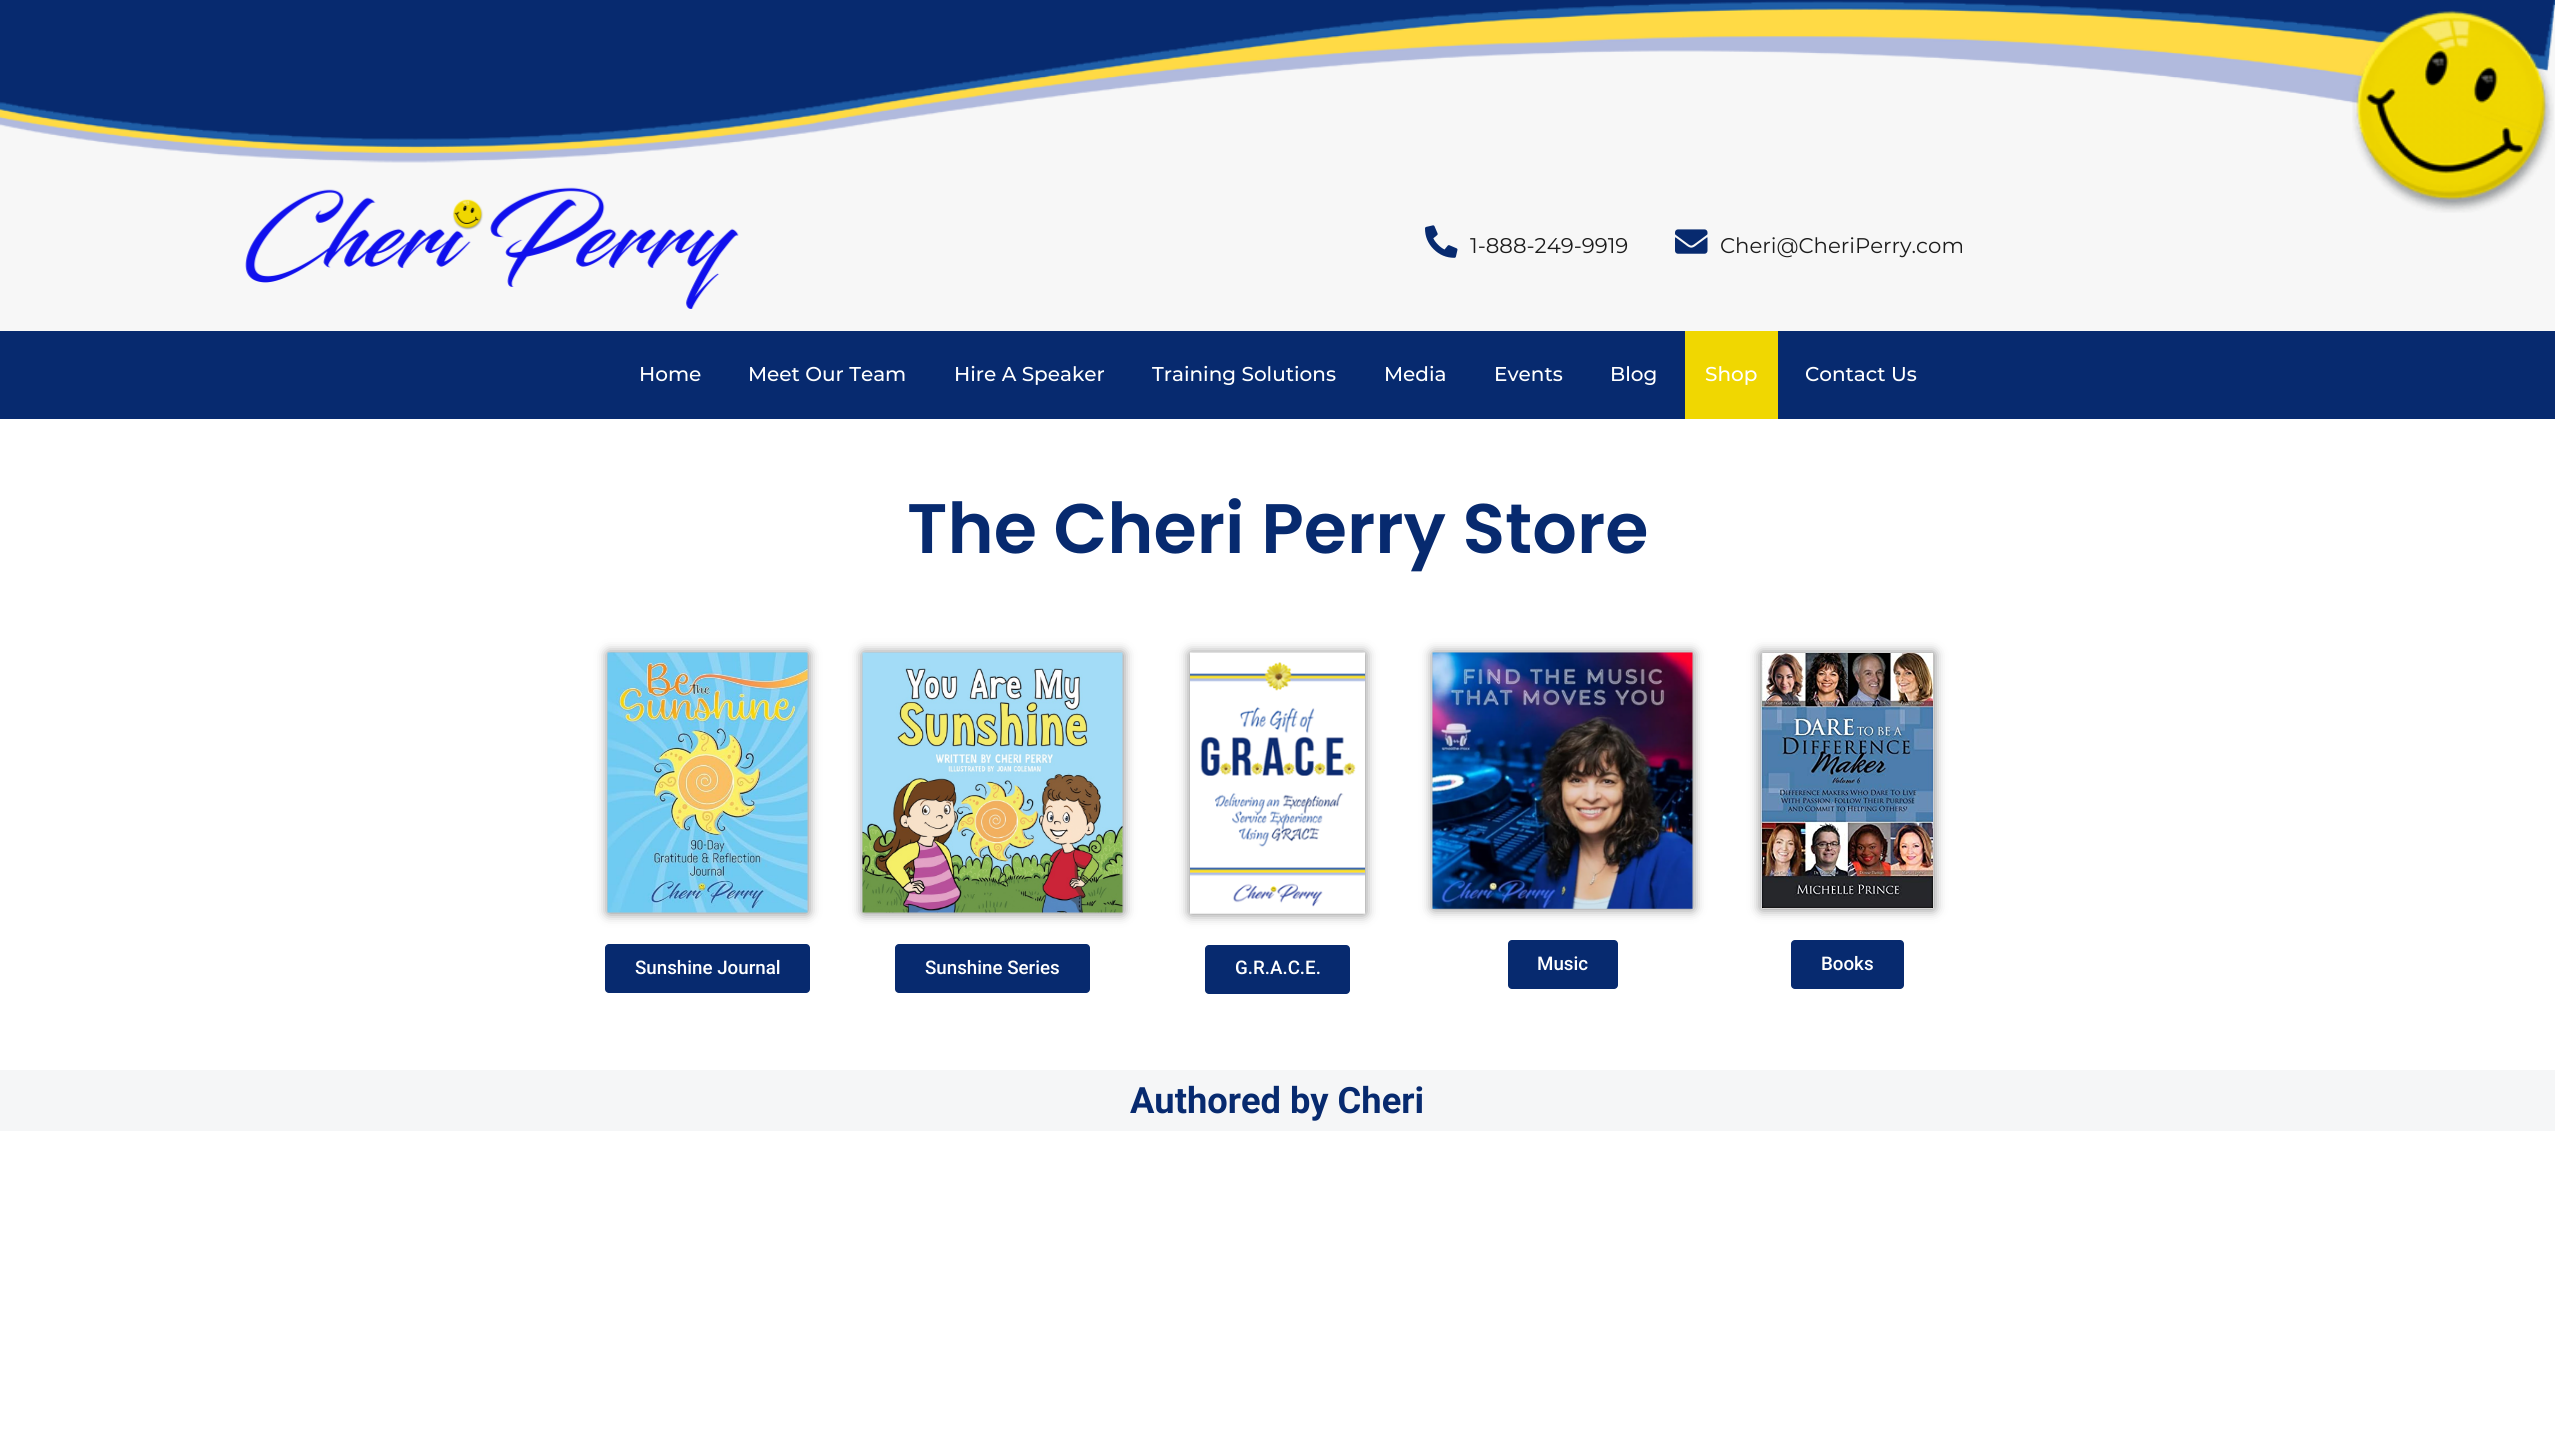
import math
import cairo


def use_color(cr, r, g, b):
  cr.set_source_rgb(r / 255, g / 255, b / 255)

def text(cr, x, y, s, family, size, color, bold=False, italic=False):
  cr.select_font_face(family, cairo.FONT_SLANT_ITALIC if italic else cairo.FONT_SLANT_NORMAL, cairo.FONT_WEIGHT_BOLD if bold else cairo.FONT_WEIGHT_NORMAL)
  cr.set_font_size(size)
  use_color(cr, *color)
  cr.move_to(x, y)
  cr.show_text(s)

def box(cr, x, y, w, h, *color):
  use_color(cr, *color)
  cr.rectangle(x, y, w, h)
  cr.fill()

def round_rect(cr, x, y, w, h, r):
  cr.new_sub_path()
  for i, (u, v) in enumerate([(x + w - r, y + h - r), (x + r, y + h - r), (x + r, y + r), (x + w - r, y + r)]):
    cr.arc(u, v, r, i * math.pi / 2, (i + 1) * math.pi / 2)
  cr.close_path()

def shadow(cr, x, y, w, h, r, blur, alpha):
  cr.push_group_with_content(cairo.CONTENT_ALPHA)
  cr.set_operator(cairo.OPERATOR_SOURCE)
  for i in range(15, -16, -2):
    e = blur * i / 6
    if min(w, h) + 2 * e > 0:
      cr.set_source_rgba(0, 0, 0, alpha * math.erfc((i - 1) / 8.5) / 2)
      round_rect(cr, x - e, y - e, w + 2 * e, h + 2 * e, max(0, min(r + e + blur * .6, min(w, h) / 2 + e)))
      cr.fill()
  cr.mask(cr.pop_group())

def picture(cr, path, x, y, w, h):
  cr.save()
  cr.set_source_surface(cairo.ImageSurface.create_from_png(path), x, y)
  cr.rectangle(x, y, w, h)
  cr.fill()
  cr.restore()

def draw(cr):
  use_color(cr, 255, 255, 255)
  cr.paint()
  box(cr, 0, 4, 2555, 327, 247, 247, 247)
  picture(cr, "img_01.png", 0, 0, 2555, 163)
  picture(cr, "img_02.png", 2352, 10, 202, 203)
  picture(cr, "img_03.png", 245, 187, 494, 122)
  picture(cr, "img_04.png", 1425, 225, 33, 33)
  picture(cr, "img_05.png", 1675, 229, 33, 25)
  box(cr, 0, 331, 2555, 88, 7, 42, 111)
  box(cr, 1685, 331, 93, 88, 240, 215, 1)
  use_color(cr, 0, 0, 0)
  shadow(cr, 608, 653, 200, 260, 0, 6, 0.5)
  picture(cr, "img_06.png", 607, 652, 201, 261)
  use_color(cr, 7, 42, 111)
  round_rect(cr, 605, 944, 205, 49, 4)
  cr.fill()
  use_color(cr, 0, 0, 0)
  shadow(cr, 863, 653, 260, 260, 0, 6, 0.5)
  picture(cr, "img_07.png", 862, 652, 261, 261)
  use_color(cr, 7, 42, 111)
  round_rect(cr, 895, 944, 195, 49, 4)
  cr.fill()
  use_color(cr, 0, 0, 0)
  shadow(cr, 1190, 653, 175, 261, 0, 6, 0.5)
  picture(cr, "img_08.png", 1190, 652, 175, 262)
  use_color(cr, 7, 42, 111)
  round_rect(cr, 1205, 945, 145, 49, 4)
  cr.fill()
  use_color(cr, 0, 0, 0)
  shadow(cr, 1433, 653, 260, 256, 0, 6, 0.5)
  picture(cr, "img_09.png", 1432, 652, 261, 257)
  use_color(cr, 7, 42, 111)
  round_rect(cr, 1508, 940, 110, 49, 4)
  cr.fill()
  use_color(cr, 0, 0, 0)
  shadow(cr, 1761, 653, 173, 256, 0, 6, 0.5)
  picture(cr, "img_10.png", 1761, 652, 173, 257)
  use_color(cr, 7, 42, 111)
  round_rect(cr, 1791, 940, 113, 49, 4)
  cr.fill()
  box(cr, 0, 1070, 2555, 61, 245, 246, 247)
  text(cr, 1470, 253, "1-888-249-9919", "Montserrat", 21.25, (28, 28, 28))
  text(cr, 1720, 253, "Cheri@CheriPerry.com", "Montserrat", 21.25, (28, 28, 28))
  text(cr, 639, 381, "Home", "Montserrat Medium", 20, (255, 255, 255))
  text(cr, 748, 381, "Meet Our Team", "Montserrat Medium", 20, (255, 255, 255))
  text(cr, 954, 381, "Hire A Speaker", "Montserrat Medium", 20, (255, 255, 255))
  text(cr, 1152, 381, "Training Solutions", "Montserrat Medium", 20, (255, 255, 255))
  text(cr, 1384, 381, "Media", "Montserrat Medium", 20, (255, 255, 255))
  text(cr, 1494, 381, "Events", "Montserrat Medium", 20, (255, 255, 255))
  text(cr, 1610, 381, "Blog", "Montserrat Medium", 20, (255, 255, 255))
  text(cr, 1705, 381, "Shop", "Montserrat Medium", 20, (255, 255, 255))
  text(cr, 1805, 381, "Contact Us", "Montserrat Medium", 20, (255, 255, 255))
  text(cr, 907, 553, "The Cheri Perry Store", "Poppins SemiBold", 70, (7, 42, 111))
  text(cr, 635, 974, "Sunshine Journal", "Roboto Medium", 18.75, (255, 255, 255))
  text(cr, 925, 974, "Sunshine Series", "Roboto Medium", 18.75, (255, 255, 255))
  text(cr, 1235, 974, "G.R.A.C.E.", "Roboto Medium", 18.75, (255, 255, 255))
  text(cr, 1537, 970, "Music", "Roboto Medium", 18.75, (255, 255, 255))
  text(cr, 1821, 970, "Books", "Roboto Medium", 18.75, (255, 255, 255))
  text(cr, 1130, 1113, "Authored by Cheri", "Roboto", 36.25, (7, 42, 111), bold=True)


surface = cairo.ImageSurface(cairo.FORMAT_RGB24, 2555, 1448)
cr = cairo.Context(surface)
options = cairo.FontOptions()
options.set_hint_metrics(cairo.HINT_METRICS_OFF)
options.set_hint_style(cairo.HINT_STYLE_NONE)
cr.set_font_options(options)
cr.set_miter_limit(4)
draw(cr)
surface.write_to_png("out.png")
